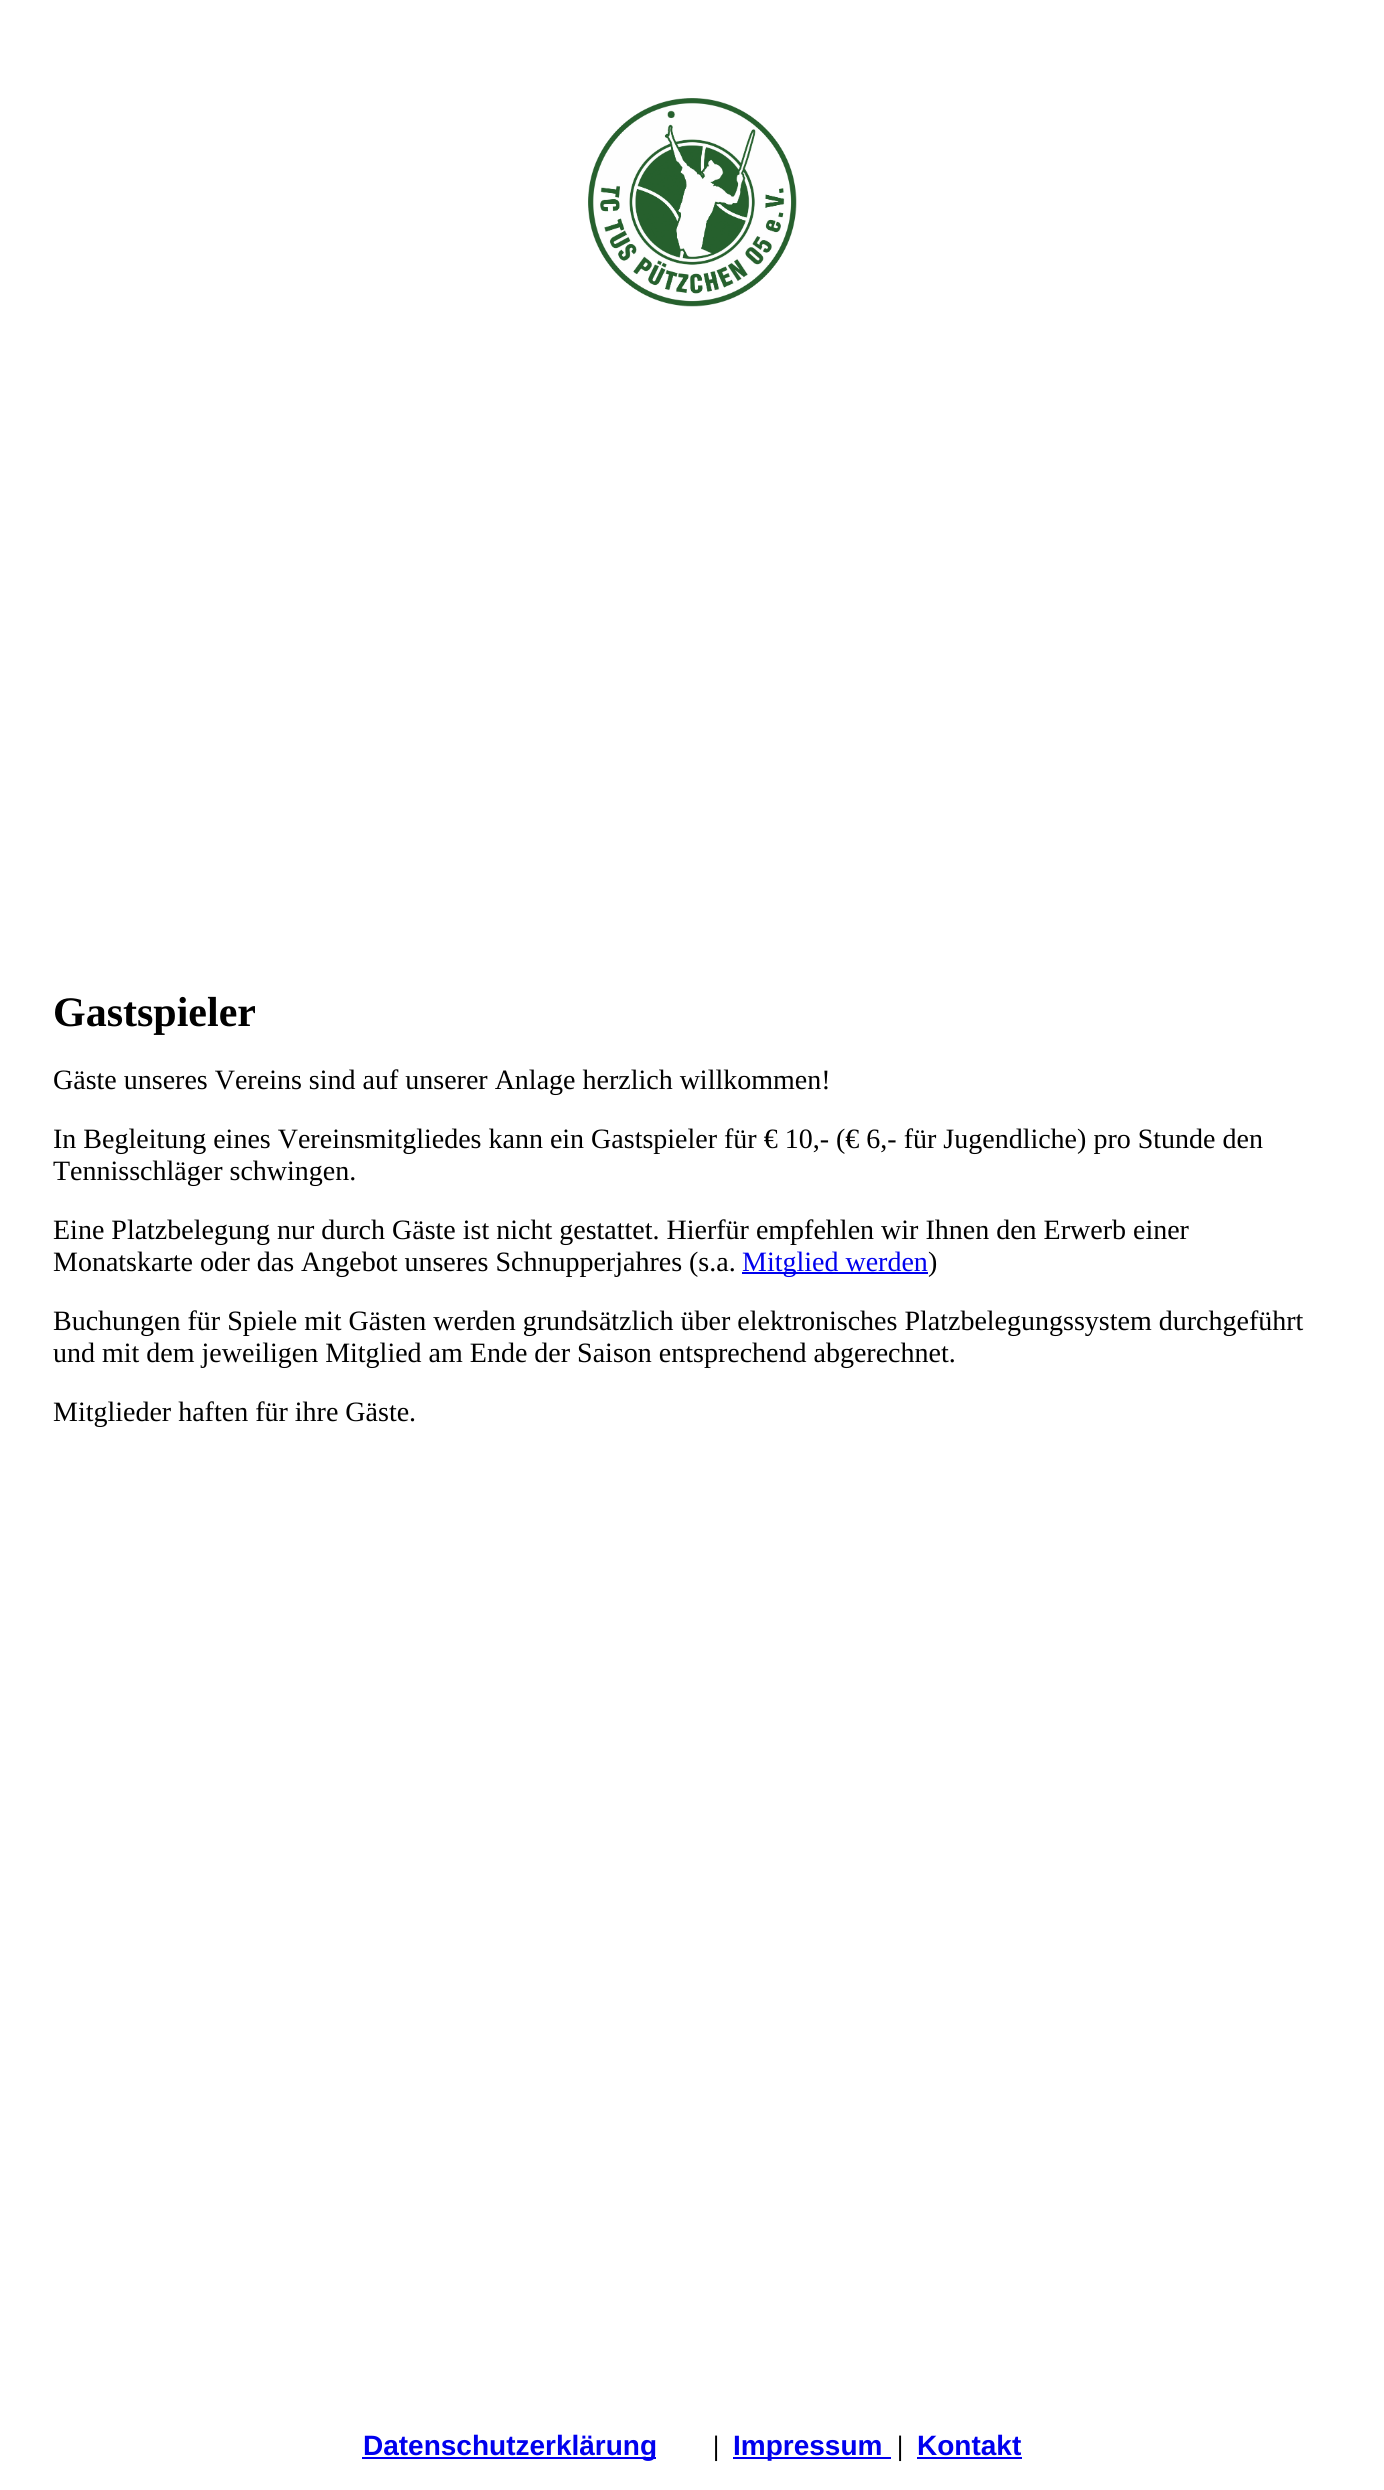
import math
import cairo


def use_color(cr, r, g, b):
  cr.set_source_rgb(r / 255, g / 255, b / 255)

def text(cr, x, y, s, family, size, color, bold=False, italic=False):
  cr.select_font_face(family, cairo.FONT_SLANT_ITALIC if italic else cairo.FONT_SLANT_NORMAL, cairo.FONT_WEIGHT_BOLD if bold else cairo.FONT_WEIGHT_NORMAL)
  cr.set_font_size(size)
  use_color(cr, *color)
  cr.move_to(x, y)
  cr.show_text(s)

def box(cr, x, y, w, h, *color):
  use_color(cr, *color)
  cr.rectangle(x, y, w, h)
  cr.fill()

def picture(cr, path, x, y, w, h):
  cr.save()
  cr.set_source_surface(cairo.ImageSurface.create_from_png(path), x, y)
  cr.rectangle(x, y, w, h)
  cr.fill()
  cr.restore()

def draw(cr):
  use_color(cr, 255, 255, 255)
  cr.paint()
  picture(cr, "img_01.png", 588, 98, 209, 209)
  box(cr, 742, 1272, 186, 2, 0, 0, 238)
  box(cr, 362, 2457, 294, 2, 0, 0, 238)
  box(cr, 733, 2457, 158, 2, 0, 0, 238)
  box(cr, 917, 2457, 105, 2, 0, 0, 238)
  text(cr, 53, 1026, "Gastspieler", "Liberation Serif", 42, (0, 0, 0), bold=True)
  text(cr, 53, 1089, "Gäste unseres Vereins sind auf unserer Anlage herzlich willkommen!", "Liberation Serif", 28, (0, 0, 0))
  text(cr, 53, 1148, "In Begleitung eines Vereinsmitgliedes kann ein Gastspieler für € 10,- (€ 6,- für Jugendliche) pro Stunde den", "Liberation Serif", 28, (0, 0, 0))
  text(cr, 53, 1180, "Tennisschläger schwingen.", "Liberation Serif", 28, (0, 0, 0))
  text(cr, 53, 1239, "Eine Platzbelegung nur durch Gäste ist nicht gestattet. Hierfür empfehlen wir Ihnen den Erwerb einer", "Liberation Serif", 28, (0, 0, 0))
  text(cr, 53, 1271, "Monatskarte oder das Angebot unseres Schnupperjahres (s.a.", "Liberation Serif", 28, (0, 0, 0))
  text(cr, 742, 1271, "Mitglied werden", "Liberation Serif", 28, (0, 0, 238))
  text(cr, 928, 1271, ")", "Liberation Serif", 28, (0, 0, 0))
  text(cr, 53, 1330, "Buchungen für Spiele mit Gästen werden grundsätzlich über elektronisches Platzbelegungssystem durchgeführt", "Liberation Serif", 28, (0, 0, 0))
  text(cr, 53, 1362, "und mit dem jeweiligen Mitglied am Ende der Saison entsprechend abgerechnet.", "Liberation Serif", 28, (0, 0, 0))
  text(cr, 53, 1421, "Mitglieder haften für ihre Gäste.", "Liberation Serif", 28, (0, 0, 0))
  text(cr, 363, 2455, "Datenschutzerklärung", "Liberation Sans", 28, (0, 0, 238), bold=True)
  text(cr, 713, 2455, "|", "Liberation Serif", 28, (0, 0, 0), bold=True)
  text(cr, 733, 2455, "Impressum", "Liberation Sans", 28, (0, 0, 238), bold=True)
  text(cr, 897, 2455, "|", "Liberation Serif", 28, (0, 0, 0), bold=True)
  text(cr, 917, 2455, "Kontakt", "Liberation Sans", 28, (0, 0, 238), bold=True)


surface = cairo.ImageSurface(cairo.FORMAT_RGB24, 1384, 2490)
cr = cairo.Context(surface)
options = cairo.FontOptions()
options.set_hint_metrics(cairo.HINT_METRICS_OFF)
options.set_hint_style(cairo.HINT_STYLE_NONE)
cr.set_font_options(options)
cr.set_miter_limit(4)
draw(cr)
surface.write_to_png("out.png")
